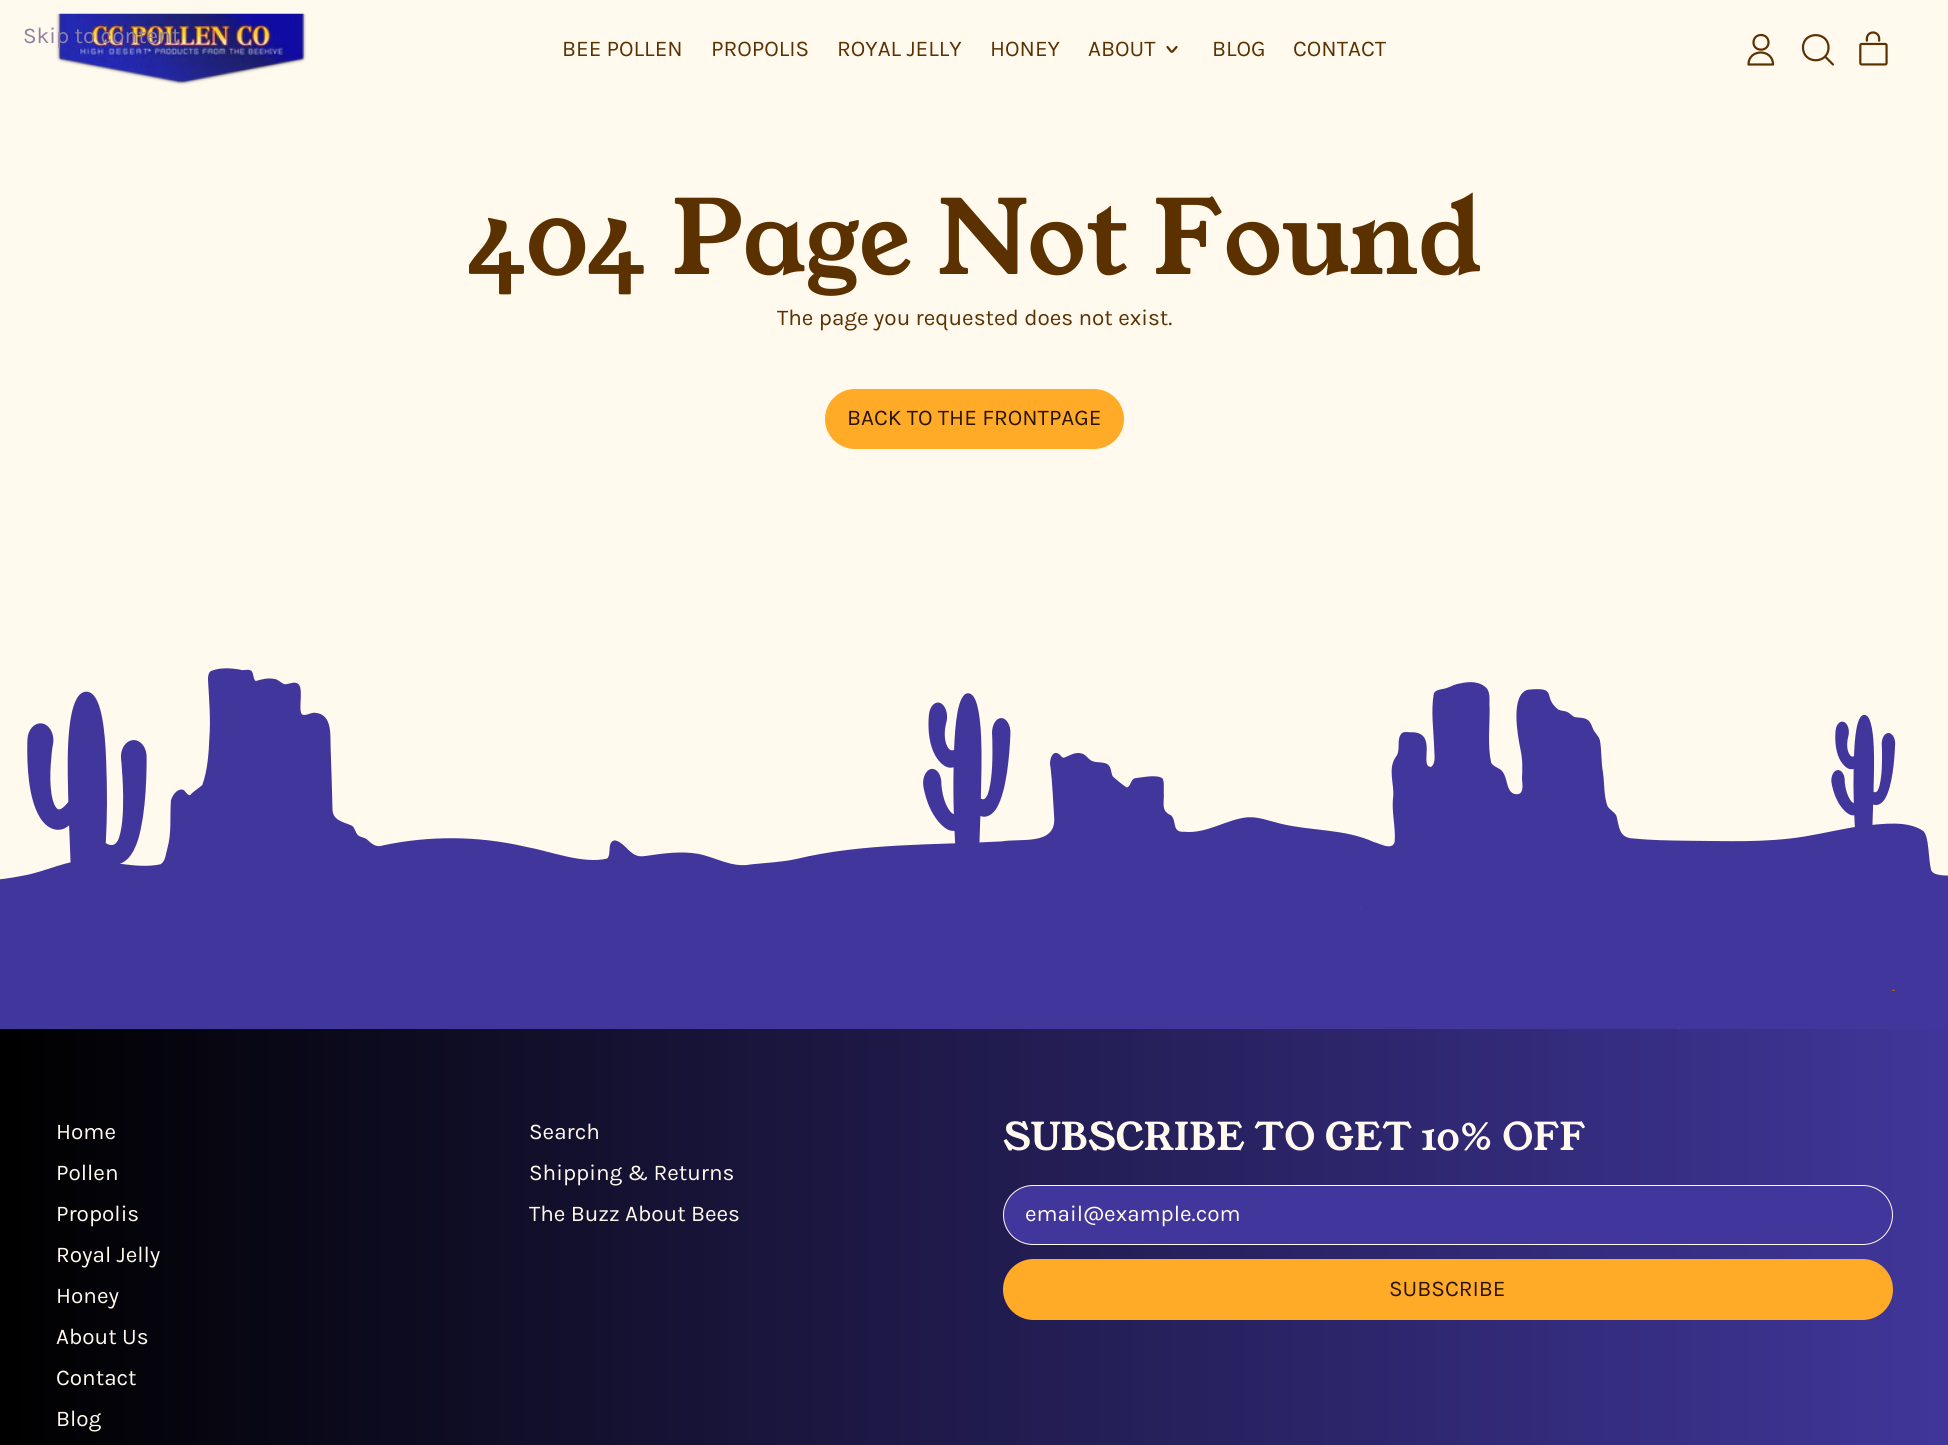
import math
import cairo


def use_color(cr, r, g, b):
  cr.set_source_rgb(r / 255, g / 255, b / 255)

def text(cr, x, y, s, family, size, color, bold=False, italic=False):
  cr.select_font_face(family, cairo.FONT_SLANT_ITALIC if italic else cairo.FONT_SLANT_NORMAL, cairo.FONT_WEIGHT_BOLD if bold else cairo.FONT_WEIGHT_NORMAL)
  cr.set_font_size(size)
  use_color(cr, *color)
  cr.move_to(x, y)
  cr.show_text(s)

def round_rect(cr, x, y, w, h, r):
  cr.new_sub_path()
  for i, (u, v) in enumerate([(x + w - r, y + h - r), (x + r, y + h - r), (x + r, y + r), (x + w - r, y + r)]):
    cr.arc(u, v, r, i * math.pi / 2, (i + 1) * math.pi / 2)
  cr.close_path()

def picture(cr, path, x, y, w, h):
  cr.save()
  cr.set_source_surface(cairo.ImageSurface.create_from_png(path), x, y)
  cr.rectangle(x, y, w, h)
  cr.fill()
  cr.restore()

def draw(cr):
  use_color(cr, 255, 249, 238)
  cr.paint()
  picture(cr, "img_01.png", 56, 13, 250, 72)
  cr.new_path()
  cr.move_to(1167.5, 47)
  cr.curve_to(1173, 53.5, 1170.5, 53.5, 1176.5, 47)
  use_color(cr, 91, 49, 0)
  cr.set_line_width(2.2)
  cr.set_line_cap(cairo.LINE_CAP_ROUND)
  cr.set_line_join(cairo.LINE_JOIN_ROUND)
  cr.stroke()
  cr.new_path()
  cr.move_to(1753.5, 42.5)
  cr.curve_to(1753.5, 52, 1768.5, 52, 1768.5, 42.5)
  cr.curve_to(1768.5, 32.5, 1753.5, 32.5, 1753.5, 42.5)
  cr.close_path()
  cr.move_to(1748.5, 64.5)
  cr.curve_to(1748.5, 48.5, 1773, 48.5, 1773, 64.5)
  cr.close_path()
  cr.stroke()
  cr.new_path()
  cr.move_to(1803, 47.5)
  cr.curve_to(1803, 64.5, 1828.5, 64.5, 1828.5, 47.5)
  cr.curve_to(1828.5, 31, 1803, 31, 1803, 47.5)
  cr.close_path()
  cr.move_to(1833, 64.5)
  cr.line_to(1825.5, 57)
  cr.stroke()
  picture(cr, "img_02.png", 1859, 31, 29, 35)
  use_color(cr, 255, 171, 40)
  round_rect(cr, 825, 389, 299, 60, 30)
  cr.fill()
  picture(cr, "img_03.png", 0, 668, 1948, 361)
  gradient = cairo.LinearGradient(0, 1323, 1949, 1323)
  gradient.add_color_stop_rgba(0, 0, 0, 0, 1)
  gradient.add_color_stop_rgba(1, 0.251, 0.212, 0.604, 1)
  cr.set_source(gradient)
  cr.rectangle(0, 1029, 1948, 416)
  cr.fill()
  use_color(cr, 65, 54, 155)
  round_rect(cr, 1003.5, 1185.5, 889, 59, 29.5)
  cr.fill_preserve()
  use_color(cr, 255, 249, 238)
  cr.set_line_width(1)
  cr.set_line_cap(cairo.LINE_CAP_BUTT)
  cr.set_line_join(cairo.LINE_JOIN_MITER)
  cr.stroke()
  use_color(cr, 255, 171, 40)
  round_rect(cr, 1003, 1259, 890, 61, 30.5)
  cr.fill()
  text(cr, 23, 43, "Skip to content", "Karla", 22.5, (143, 128, 161))
  text(cr, 562, 56, "BEE POLLEN", "Karla", 22.5, (91, 49, 0))
  text(cr, 711, 56, "PROPOLIS", "Karla", 22.5, (91, 49, 0))
  text(cr, 837, 56, "ROYAL JELLY", "Karla", 22.5, (91, 49, 0))
  text(cr, 990, 56, "HONEY", "Karla", 22.5, (91, 49, 0))
  text(cr, 1088, 56, "ABOUT", "Karla", 22.5, (91, 49, 0))
  text(cr, 1212, 56, "BLOG", "Karla", 22.5, (91, 49, 0))
  text(cr, 1293, 56, "CONTACT", "Karla", 22.5, (91, 49, 0))
  text(cr, 468, 274, "404 Page Not Found", "Young Serif", 101.75, (91, 49, 0))
  text(cr, 777, 325, "The page you requested does not exist.", "Karla", 22.5, (91, 49, 0))
  text(cr, 847, 425, "BACK TO THE FRONTPAGE", "Karla", 22.5, (43, 20, 0))
  text(cr, 56, 1139, "Home", "Karla", 22.5, (255, 249, 238))
  text(cr, 56, 1180, "Pollen", "Karla", 22.5, (255, 249, 238))
  text(cr, 56, 1221, "Propolis", "Karla", 22.5, (255, 249, 238))
  text(cr, 56, 1262, "Royal Jelly", "Karla", 22.5, (255, 249, 238))
  text(cr, 56, 1303, "Honey", "Karla", 22.5, (255, 249, 238))
  text(cr, 56, 1344, "About Us", "Karla", 22.5, (255, 249, 238))
  text(cr, 56, 1385, "Contact", "Karla", 22.5, (255, 249, 238))
  text(cr, 56, 1426, "Blog", "Karla", 22.5, (255, 249, 238))
  text(cr, 529, 1139, "Search", "Karla", 22.5, (255, 249, 238))
  text(cr, 529, 1180, "Shipping & Returns", "Karla", 22.5, (255, 249, 238))
  text(cr, 529, 1221, "The Buzz About Bees", "Karla", 22.5, (255, 249, 238))
  text(cr, 1003, 1150, "SUBSCRIBE TO GET 10% OFF", "Young Serif", 37.8, (255, 249, 238))
  text(cr, 1025, 1221, "email@example.com", "Karla", 22.5, (255, 249, 238))
  text(cr, 1389, 1296, "SUBSCRIBE", "Karla", 22.5, (43, 20, 0))


surface = cairo.ImageSurface(cairo.FORMAT_RGB24, 1948, 1445)
cr = cairo.Context(surface)
options = cairo.FontOptions()
options.set_hint_metrics(cairo.HINT_METRICS_OFF)
options.set_hint_style(cairo.HINT_STYLE_NONE)
cr.set_font_options(options)
cr.set_miter_limit(4)
draw(cr)
surface.write_to_png("out.png")
